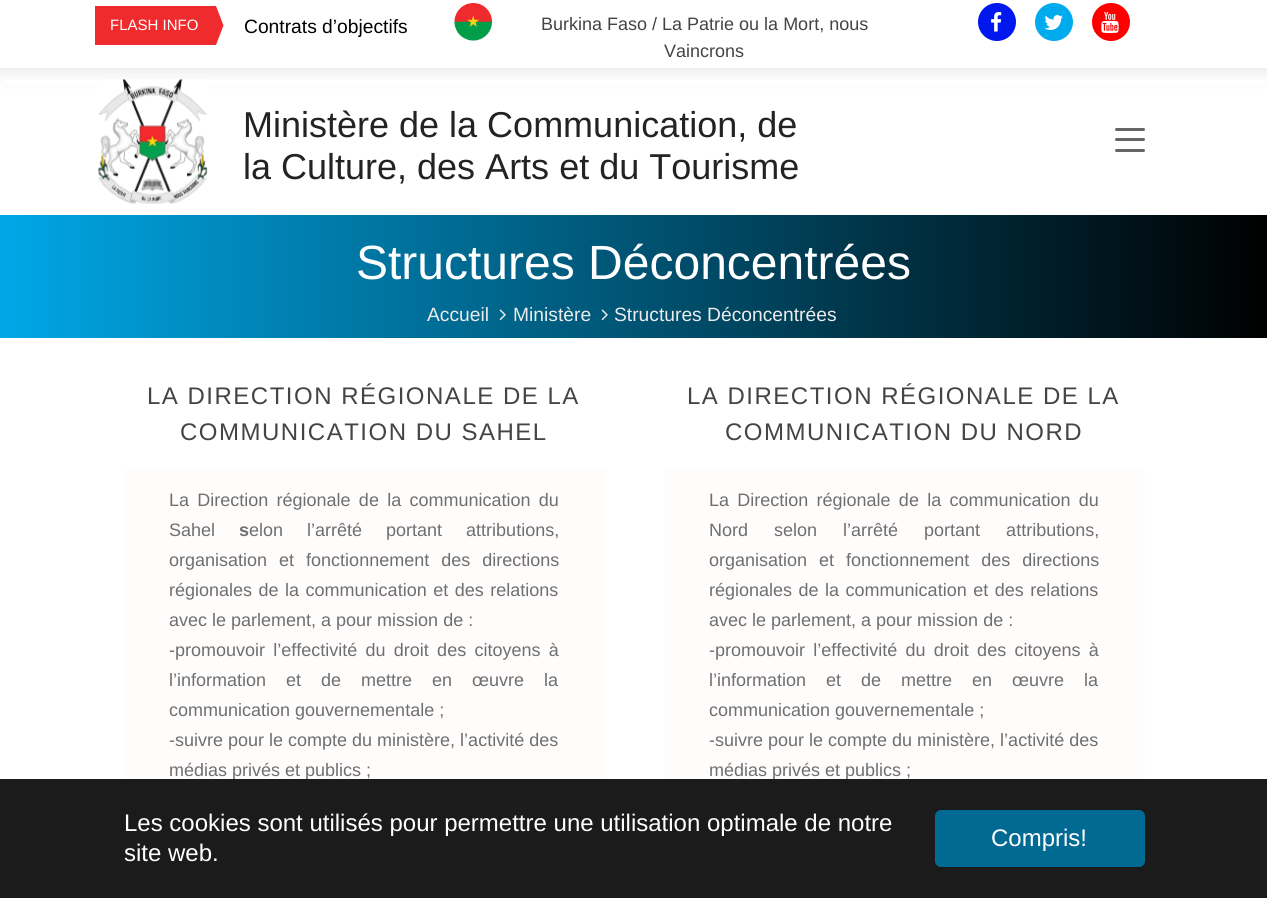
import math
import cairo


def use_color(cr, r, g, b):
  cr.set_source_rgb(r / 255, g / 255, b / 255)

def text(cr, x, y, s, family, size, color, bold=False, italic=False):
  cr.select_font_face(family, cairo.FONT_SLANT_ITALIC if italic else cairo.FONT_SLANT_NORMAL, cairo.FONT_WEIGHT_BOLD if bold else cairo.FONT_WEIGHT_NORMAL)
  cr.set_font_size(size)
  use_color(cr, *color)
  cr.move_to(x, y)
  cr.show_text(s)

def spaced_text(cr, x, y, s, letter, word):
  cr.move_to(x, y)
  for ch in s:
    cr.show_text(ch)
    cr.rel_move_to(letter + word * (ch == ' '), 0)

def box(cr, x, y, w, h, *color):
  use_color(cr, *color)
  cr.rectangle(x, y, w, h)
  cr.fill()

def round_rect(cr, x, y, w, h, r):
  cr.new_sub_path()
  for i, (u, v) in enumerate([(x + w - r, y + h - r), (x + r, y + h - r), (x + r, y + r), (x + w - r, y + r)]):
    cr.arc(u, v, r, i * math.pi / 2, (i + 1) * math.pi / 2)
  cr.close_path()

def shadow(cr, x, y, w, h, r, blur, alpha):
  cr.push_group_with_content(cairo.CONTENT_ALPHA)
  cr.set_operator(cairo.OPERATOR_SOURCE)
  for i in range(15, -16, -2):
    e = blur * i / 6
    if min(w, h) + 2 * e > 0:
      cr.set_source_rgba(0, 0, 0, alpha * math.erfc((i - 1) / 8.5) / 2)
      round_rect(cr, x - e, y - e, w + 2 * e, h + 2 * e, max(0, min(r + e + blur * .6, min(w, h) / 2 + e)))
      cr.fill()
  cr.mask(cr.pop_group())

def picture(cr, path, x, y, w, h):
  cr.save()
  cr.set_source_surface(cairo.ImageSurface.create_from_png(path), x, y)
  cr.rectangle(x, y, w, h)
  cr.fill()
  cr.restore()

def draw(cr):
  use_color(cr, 255, 255, 255)
  cr.paint()
  cr.save()
  cr.set_fill_rule(cairo.FILL_RULE_EVEN_ODD)
  cr.new_path()
  cr.move_to(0, 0)
  cr.line_to(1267, 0)
  cr.line_to(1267, 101)
  cr.line_to(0, 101)
  cr.close_path()
  cr.move_to(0, 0)
  cr.line_to(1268, 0)
  cr.line_to(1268, 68)
  cr.line_to(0, 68)
  cr.close_path()
  cr.clip()
  use_color(cr, 228, 220, 220)
  shadow(cr, 0, 0, 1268, 68, 0, 10.5, 1)
  cr.restore()
  box(cr, 95, 6, 121, 39, 240, 43, 45)
  cr.new_path()
  cr.move_to(216, 45)
  cr.line_to(216, 6)
  cr.line_to(223.5, 25.5)
  cr.close_path()
  cr.fill()
  picture(cr, "img_01.png", 454, 3, 38, 38)
  use_color(cr, 0, 24, 237)
  cr.arc(997, 22, 19, 0, 2 * math.pi)
  cr.fill()
  picture(cr, "img_02.png", 991, 12, 11, 20)
  use_color(cr, 0, 171, 237)
  cr.arc(1054, 22, 19, 0, 2 * math.pi)
  cr.fill()
  picture(cr, "img_03.png", 1044, 15, 19, 15)
  use_color(cr, 255, 0, 0)
  cr.arc(1111, 22, 19, 0, 2 * math.pi)
  cr.fill()
  picture(cr, "img_04.png", 1101, 12, 18, 21)
  box(cr, 4, 80, 1260, 3, 255, 255, 255)
  picture(cr, "img_05.png", 98, 79, 110, 125)
  use_color(cr, 102, 102, 102)
  round_rect(cr, 1115, 128, 30, 3, 1.5)
  cr.fill()
  round_rect(cr, 1115, 138, 30, 3, 1.5)
  cr.fill()
  round_rect(cr, 1115, 149, 30, 3, 1.5)
  cr.fill()
  gradient = cairo.LinearGradient(0, 276, 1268, 276)
  gradient.add_color_stop_rgba(0, 0, 0.655, 0.902, 1)
  gradient.add_color_stop_rgba(1, 0, 0, 0, 1)
  cr.set_source(gradient)
  cr.rectangle(0, 215, 1267, 123)
  cr.fill()
  picture(cr, "img_06.png", 499, 309, 7, 12)
  picture(cr, "img_07.png", 601, 309, 7, 12)
  box(cr, 125, 468, 480, 311, 255, 252, 252)
  box(cr, 665, 468, 480, 311, 255, 252, 252)
  text(cr, 110, 30, "FLASH INFO", "Liberation Sans", 15, (255, 255, 255))
  cr.save()
  cr.rectangle(245, 6, 210, 39)
  cr.clip()
  text(cr, 244, 33, "Contrats d’objectifs", "Liberation Sans", 19.25, (0, 0, 0))
  cr.restore()
  text(cr, 541, 30, "Burkina Faso / La Patrie ou la Mort, nous", "Liberation Sans", 18, (68, 68, 68))
  text(cr, 664, 57, "Vaincrons", "Liberation Sans", 18, (68, 68, 68))
  text(cr, 243, 137, "Ministère de la Communication, de", "Liberation Sans", 36, (35, 35, 35))
  text(cr, 243, 179, "la Culture, des Arts et du Tourisme", "Liberation Sans", 36, (35, 35, 35))
  text(cr, 356, 279, "Structures Déconcentrées", "Liberation Sans", 48, (255, 255, 255))
  text(cr, 427, 321, "Accueil", "Liberation Sans", 19.25, (236, 235, 235))
  text(cr, 513, 321, "Ministère", "Liberation Sans", 19.25, (236, 235, 235))
  text(cr, 614, 321, "Structures Déconcentrées", "Liberation Sans", 19.25, (236, 235, 235))
  cr.set_font_size(24)
  use_color(cr, 68, 68, 68)
  spaced_text(cr, 147, 404, "LA DIRECTION RÉGIONALE DE LA", 1.5, 0)
  spaced_text(cr, 180, 440, "COMMUNICATION DU SAHEL", 1.5, 0)
  cr.set_font_size(18)
  use_color(cr, 111, 111, 111)
  spaced_text(cr, 169, 506, "La Direction régionale de la communication du", 0, 3.25)
  text(cr, 169, 536, "Sahel", "Liberation Sans", 18, (111, 111, 111))
  text(cr, 239, 536, "s", "Liberation Sans", 18, (111, 111, 111), bold=True)
  cr.select_font_face("Liberation Sans")
  spaced_text(cr, 249, 536, "elon l’arrêté portant attributions,", 0, 19)
  spaced_text(cr, 169, 566, "organisation et fonctionnement des directions", 0, 7)
  spaced_text(cr, 169, 596, "régionales de la communication et des relations", 0, 1.5)
  text(cr, 169, 626, "avec le parlement, a pour mission de :", "Liberation Sans", 18, (111, 111, 111))
  spaced_text(cr, 169, 656, "-promouvoir l’effectivité du droit des citoyens à", 0, 3.25)
  spaced_text(cr, 169, 686, "l’information et de mettre en œuvre la", 0, 15)
  text(cr, 169, 716, "communication gouvernementale ;", "Liberation Sans", 18, (111, 111, 111))
  text(cr, 169, 746, "-suivre pour le compte du ministère, l’activité des", "Liberation Sans", 18, (111, 111, 111))
  text(cr, 169, 776, "médias privés et publics ;", "Liberation Sans", 18, (111, 111, 111))
  cr.set_font_size(24)
  use_color(cr, 68, 68, 68)
  spaced_text(cr, 687, 404, "LA DIRECTION RÉGIONALE DE LA", 1.5, 0)
  spaced_text(cr, 725, 440, "COMMUNICATION DU NORD", 1.5, 0)
  cr.set_font_size(18)
  use_color(cr, 111, 111, 111)
  spaced_text(cr, 709, 506, "La Direction régionale de la communication du", 0, 3.25)
  spaced_text(cr, 709, 536, "Nord selon l’arrêté portant attributions,", 0, 21)
  spaced_text(cr, 709, 566, "organisation et fonctionnement des directions", 0, 7)
  spaced_text(cr, 709, 596, "régionales de la communication et des relations", 0, 1.5)
  text(cr, 709, 626, "avec le parlement, a pour mission de :", "Liberation Sans", 18, (111, 111, 111))
  spaced_text(cr, 709, 656, "-promouvoir l’effectivité du droit des citoyens à", 0, 3.25)
  spaced_text(cr, 709, 686, "l’information et de mettre en œuvre la", 0, 15)
  text(cr, 709, 716, "communication gouvernementale ;", "Liberation Sans", 18, (111, 111, 111))
  text(cr, 709, 746, "-suivre pour le compte du ministère, l’activité des", "Liberation Sans", 18, (111, 111, 111))
  text(cr, 709, 776, "médias privés et publics ;", "Liberation Sans", 18, (111, 111, 111))
  box(cr, 0, 779, 1267, 119, 27, 27, 27)
  text(cr, 124, 831, "Les cookies sont utilisés pour permettre une utilisation optimale de notre", "Liberation Sans", 24, (255, 255, 255))
  text(cr, 124, 861, "site web.", "Liberation Sans", 24, (255, 255, 255))
  use_color(cr, 0, 106, 146)
  round_rect(cr, 936, 811, 208, 55, 5)
  cr.fill_preserve()
  cr.stroke()
  text(cr, 991, 846, "Compris!", "Liberation Sans", 24, (255, 255, 255))


surface = cairo.ImageSurface(cairo.FORMAT_RGB24, 1267, 898)
cr = cairo.Context(surface)
options = cairo.FontOptions()
options.set_hint_metrics(cairo.HINT_METRICS_OFF)
options.set_hint_style(cairo.HINT_STYLE_NONE)
cr.set_font_options(options)
cr.set_miter_limit(4)
draw(cr)
surface.write_to_png("out.png")
